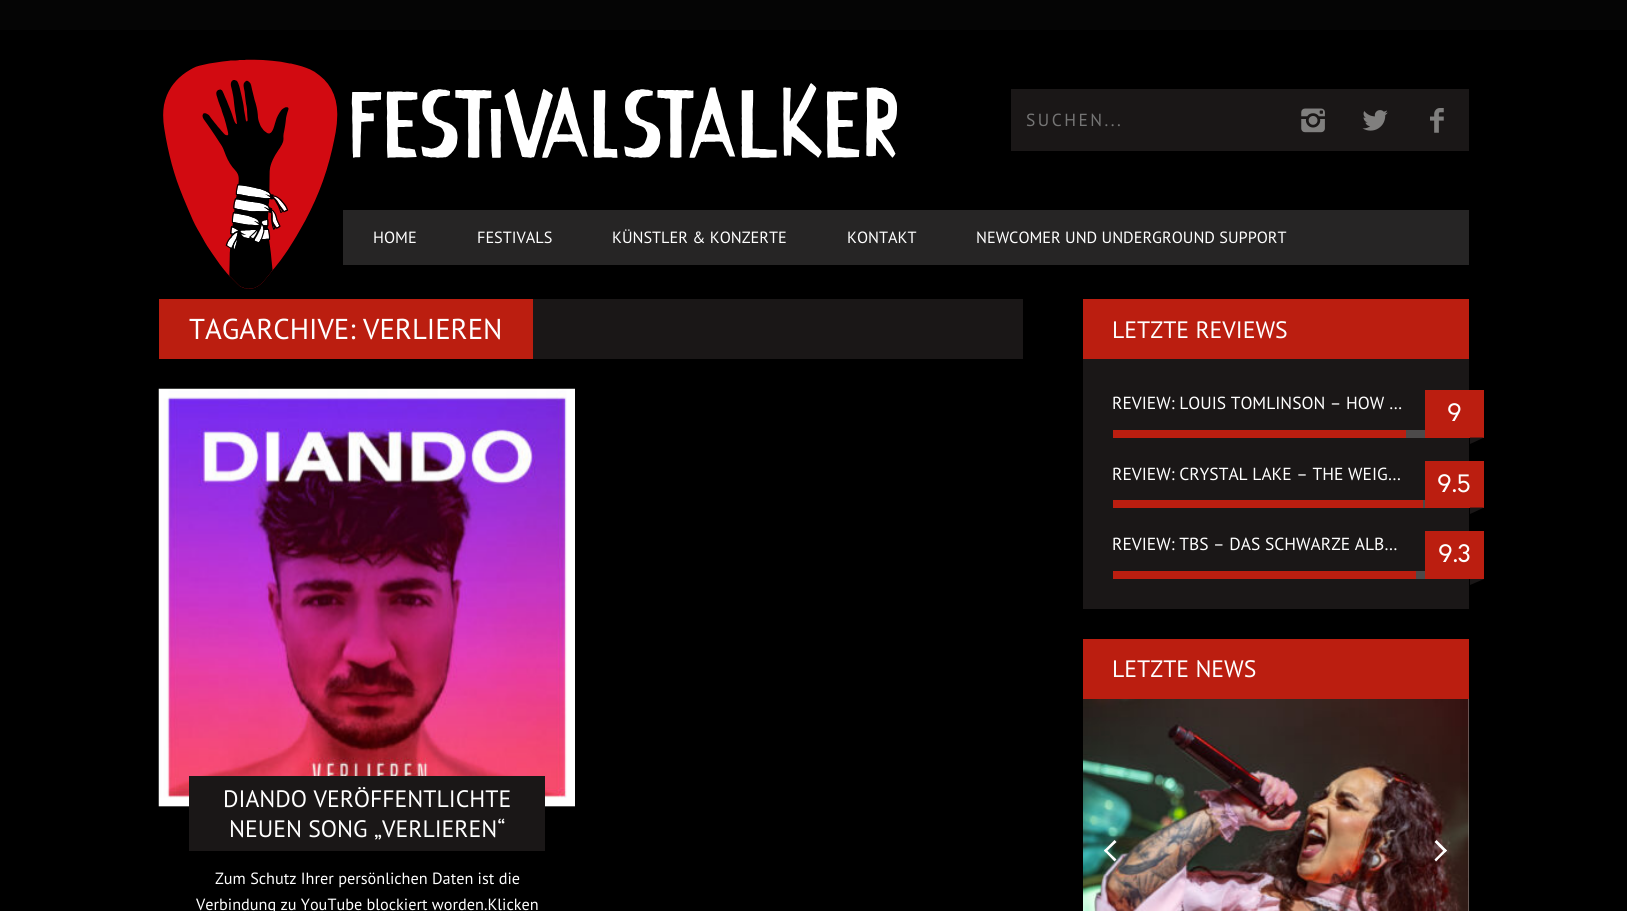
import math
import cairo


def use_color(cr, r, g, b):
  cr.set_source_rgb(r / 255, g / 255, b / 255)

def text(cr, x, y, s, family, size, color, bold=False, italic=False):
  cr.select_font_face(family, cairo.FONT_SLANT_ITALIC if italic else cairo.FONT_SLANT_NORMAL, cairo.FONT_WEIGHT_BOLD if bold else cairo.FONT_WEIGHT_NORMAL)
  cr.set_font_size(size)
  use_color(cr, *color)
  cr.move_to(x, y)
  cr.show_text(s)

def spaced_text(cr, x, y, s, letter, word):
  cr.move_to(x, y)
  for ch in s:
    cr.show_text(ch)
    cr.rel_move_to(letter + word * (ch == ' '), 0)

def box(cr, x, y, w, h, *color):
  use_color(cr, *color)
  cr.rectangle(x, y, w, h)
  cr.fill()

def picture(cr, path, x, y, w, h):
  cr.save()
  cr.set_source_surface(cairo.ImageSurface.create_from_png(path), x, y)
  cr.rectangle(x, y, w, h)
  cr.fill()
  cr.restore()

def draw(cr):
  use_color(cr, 0, 0, 0)
  cr.paint()
  box(cr, 0, 0, 1627, 30, 5, 5, 5)
  picture(cr, "img_01.png", 163, 59, 175, 230)
  picture(cr, "img_02.png", 351, 83, 546, 75)
  box(cr, 1011, 89, 458, 62, 26, 23, 23)
  picture(cr, "img_03.png", 1301, 108, 24, 25)
  picture(cr, "img_04.png", 1362, 110, 26, 21)
  picture(cr, "img_05.png", 1430, 108, 14, 25)
  box(cr, 343, 210, 1126, 55, 38, 37, 37)
  box(cr, 533, 299, 490, 60, 26, 23, 23)
  box(cr, 159, 299, 374, 60, 187, 30, 16)
  picture(cr, "img_06.png", 158, 388, 417, 419)
  box(cr, 189, 776, 356, 75, 26, 23, 23)
  box(cr, 1083, 299, 386, 60, 187, 30, 16)
  box(cr, 1083, 359, 386, 250, 26, 23, 23)
  box(cr, 1425, 390, 59, 48, 187, 30, 16)
  use_color(cr, 26, 23, 23)
  cr.new_path()
  cr.move_to(1470, 437.5)
  cr.line_to(1484, 437.5)
  cr.line_to(1470, 444)
  cr.close_path()
  cr.fill()
  box(cr, 1406, 430, 19, 8, 76, 74, 74)
  box(cr, 1113, 430, 293, 8, 187, 30, 16)
  box(cr, 1425, 461, 59, 47, 187, 30, 16)
  use_color(cr, 26, 23, 23)
  cr.new_path()
  cr.move_to(1470, 507.5)
  cr.line_to(1484, 507.5)
  cr.line_to(1470, 514)
  cr.close_path()
  cr.fill()
  box(cr, 1423, 500, 2, 8, 76, 74, 74)
  box(cr, 1113, 500, 310, 8, 187, 30, 16)
  box(cr, 1425, 531, 59, 48, 187, 30, 16)
  use_color(cr, 26, 23, 23)
  cr.new_path()
  cr.move_to(1470, 579)
  cr.line_to(1484, 579)
  cr.line_to(1470, 585)
  cr.close_path()
  cr.fill()
  box(cr, 1416, 571, 9, 8, 76, 74, 74)
  box(cr, 1113, 571, 303, 8, 187, 30, 16)
  box(cr, 1083, 639, 386, 60, 187, 30, 16)
  box(cr, 1468, 699, 1, 212, 204, 204, 204)
  picture(cr, "img_07.png", 1083, 699, 386, 212)
  use_color(cr, 255, 255, 255)
  cr.new_path()
  cr.move_to(1105.5, 849)
  cr.line_to(1116.5, 859.5)
  cr.line_to(1114.5, 861.5)
  cr.line_to(1104, 850.5)
  cr.close_path()
  cr.fill()
  cr.new_path()
  cr.move_to(1114.5, 840)
  cr.line_to(1116.5, 842)
  cr.line_to(1105.5, 852.5)
  cr.line_to(1104, 850.5)
  cr.close_path()
  cr.fill()
  cr.new_path()
  cr.move_to(1434.5, 842)
  cr.line_to(1436.5, 840)
  cr.line_to(1447, 850.5)
  cr.line_to(1445, 852.5)
  cr.close_path()
  cr.fill()
  cr.new_path()
  cr.move_to(1434.5, 859.5)
  cr.line_to(1445, 849)
  cr.line_to(1447, 850.5)
  cr.line_to(1436, 861.5)
  cr.close_path()
  cr.fill()
  cr.select_font_face("PT Sans")
  cr.set_font_size(17.5)
  use_color(cr, 117, 117, 117)
  spaced_text(cr, 1026, 126, "SUCHEN...", 2.5, 0)
  text(cr, 373, 243, "HOME", "PT Sans", 16.25, (255, 255, 255))
  text(cr, 477, 243, "FESTIVALS", "PT Sans", 16.25, (255, 255, 255))
  text(cr, 612, 243, "KÜNSTLER & KONZERTE", "PT Sans", 16.25, (255, 255, 255))
  text(cr, 847, 243, "KONTAKT", "PT Sans", 16.25, (255, 255, 255))
  text(cr, 976, 243, "NEWCOMER UND UNDERGROUND SUPPORT", "PT Sans", 16.25, (255, 255, 255))
  text(cr, 189, 339, "TAGARCHIVE: VERLIEREN", "PT Sans", 28.75, (255, 255, 255))
  text(cr, 223, 807, "DIANDO VERÖFFENTLICHTE", "PT Sans", 23.75, (255, 255, 255))
  text(cr, 229, 837, "NEUEN SONG „VERLIEREN“", "PT Sans", 23.75, (255, 255, 255))
  text(cr, 215, 884, "Zum Schutz Ihrer persönlichen Daten ist die", "PT Sans", 16.25, (255, 255, 255))
  text(cr, 196, 910, "Verbindung zu YouTube blockiert worden.Klicken", "PT Sans", 16.25, (255, 255, 255))
  text(cr, 1112, 338, "LETZTE REVIEWS", "PT Sans", 23.75, (255, 255, 255))
  text(cr, 1112, 409, "REVIEW: LOUIS TOMLINSON – HOW …", "PT Sans", 17.5, (255, 255, 255))
  text(cr, 1447, 421, "9", "Arvo", 23.75, (255, 255, 255))
  text(cr, 1112, 480, "REVIEW: CRYSTAL LAKE – THE WEIG…", "PT Sans", 17.5, (255, 255, 255))
  text(cr, 1437, 492, "9.5", "Arvo", 23.75, (255, 255, 255))
  text(cr, 1112, 550, "REVIEW: TBS – DAS SCHWARZE ALB…", "PT Sans", 17.5, (255, 255, 255))
  text(cr, 1438, 562, "9.3", "Arvo", 23.75, (255, 255, 255))
  text(cr, 1112, 677, "LETZTE NEWS", "PT Sans", 23.75, (255, 255, 255))


surface = cairo.ImageSurface(cairo.FORMAT_RGB24, 1627, 911)
cr = cairo.Context(surface)
options = cairo.FontOptions()
options.set_hint_metrics(cairo.HINT_METRICS_OFF)
options.set_hint_style(cairo.HINT_STYLE_NONE)
cr.set_font_options(options)
cr.set_miter_limit(4)
draw(cr)
surface.write_to_png("out.png")
